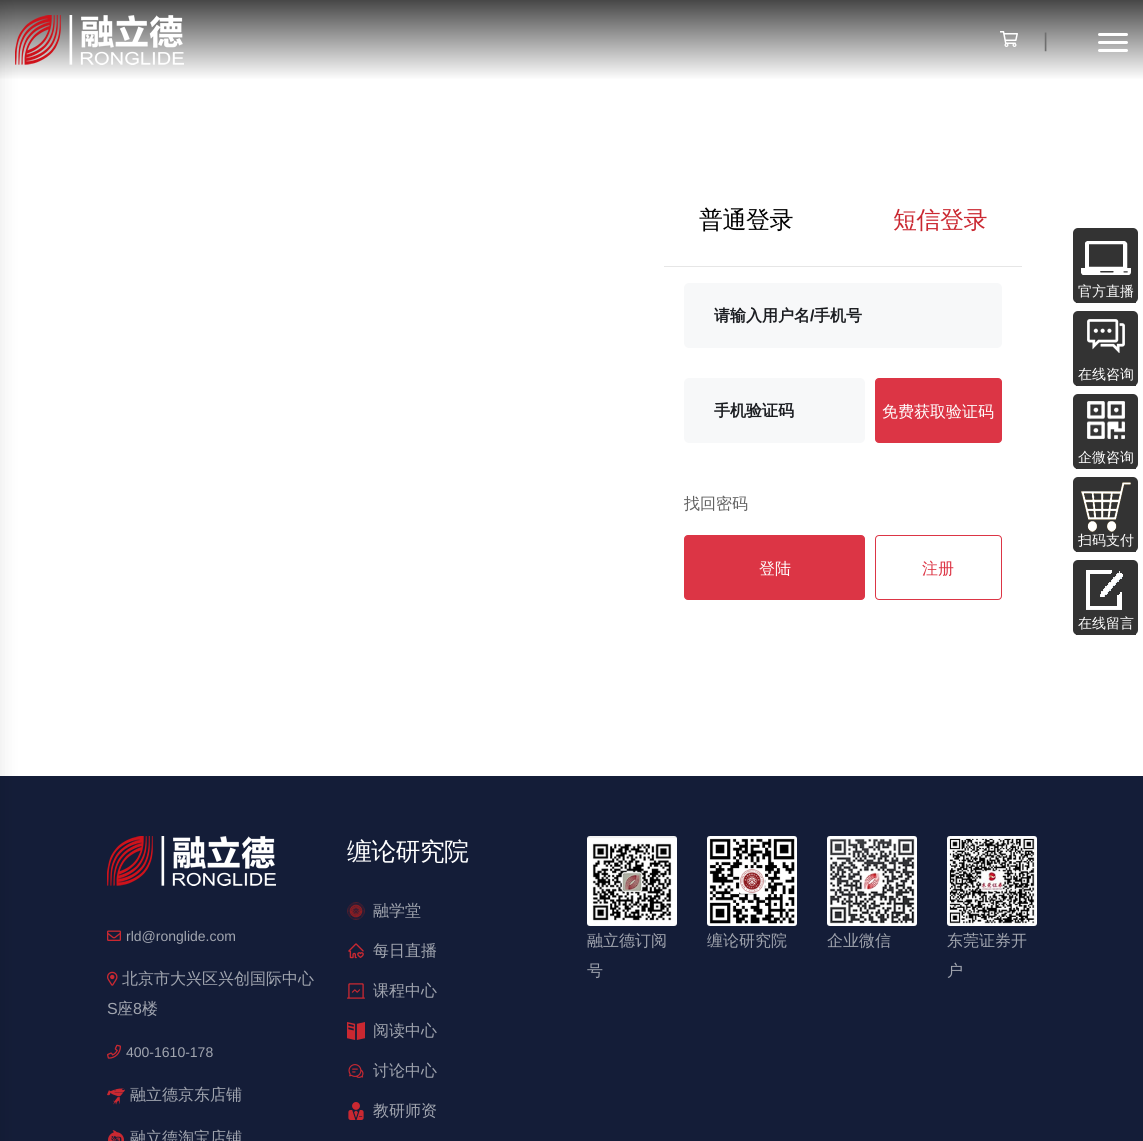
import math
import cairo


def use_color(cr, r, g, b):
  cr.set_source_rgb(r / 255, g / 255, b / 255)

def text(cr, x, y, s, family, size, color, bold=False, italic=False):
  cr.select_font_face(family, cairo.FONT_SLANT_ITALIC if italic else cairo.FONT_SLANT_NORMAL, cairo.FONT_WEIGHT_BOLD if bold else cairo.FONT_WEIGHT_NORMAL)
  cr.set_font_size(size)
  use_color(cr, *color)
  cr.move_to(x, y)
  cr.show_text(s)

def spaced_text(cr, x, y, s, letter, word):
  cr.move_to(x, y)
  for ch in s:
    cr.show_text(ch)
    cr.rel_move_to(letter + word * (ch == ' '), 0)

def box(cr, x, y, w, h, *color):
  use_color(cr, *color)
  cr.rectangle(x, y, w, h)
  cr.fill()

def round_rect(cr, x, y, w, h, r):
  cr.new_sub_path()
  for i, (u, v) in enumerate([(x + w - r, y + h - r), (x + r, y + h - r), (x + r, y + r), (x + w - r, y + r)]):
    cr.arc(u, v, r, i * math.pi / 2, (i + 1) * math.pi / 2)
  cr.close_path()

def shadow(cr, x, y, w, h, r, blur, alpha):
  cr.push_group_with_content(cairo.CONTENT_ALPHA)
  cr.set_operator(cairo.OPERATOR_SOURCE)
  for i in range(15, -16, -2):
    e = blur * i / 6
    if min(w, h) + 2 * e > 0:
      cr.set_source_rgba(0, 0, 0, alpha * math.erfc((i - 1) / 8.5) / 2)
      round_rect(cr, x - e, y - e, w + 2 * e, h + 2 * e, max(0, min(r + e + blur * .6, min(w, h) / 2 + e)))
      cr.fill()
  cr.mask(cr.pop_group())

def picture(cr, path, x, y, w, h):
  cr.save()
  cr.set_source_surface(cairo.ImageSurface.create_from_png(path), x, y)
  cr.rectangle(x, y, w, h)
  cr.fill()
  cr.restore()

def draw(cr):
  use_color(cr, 255, 255, 255)
  cr.paint()
  gradient = cairo.LinearGradient(572, 0, 572, 80)
  gradient.add_color_stop_rgba(0, 0.278, 0.278, 0.278, 1)
  gradient.add_color_stop_rgba(1, 1, 1, 1, 1)
  cr.set_source(gradient)
  cr.rectangle(0, 0, 1143, 79)
  cr.fill()
  picture(cr, "img_01.png", 15, 15, 169, 50)
  box(cr, 0, 776, 1143, 365, 20, 29, 56)
  use_color(cr, 0, 0, 0)
  shadow(cr, -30, 5, 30, 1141, 0, 10, 0.1)
  picture(cr, "img_02.png", 1000, 31, 18, 16)
  use_color(cr, 255, 255, 255)
  round_rect(cr, 1098, 33, 30, 3, 1.5)
  cr.fill()
  round_rect(cr, 1098, 41, 30, 3, 1.5)
  cr.fill()
  round_rect(cr, 1098, 49, 30, 3, 1.5)
  cr.fill()
  box(cr, 664, 266, 358, 1, 230, 230, 230)
  use_color(cr, 247, 248, 249)
  round_rect(cr, 684, 283, 318, 65, 5)
  cr.fill()
  round_rect(cr, 684, 378, 181, 65, 5)
  cr.fill()
  use_color(cr, 220, 53, 69)
  round_rect(cr, 875.5, 378.5, 126, 64, 3.5)
  cr.fill_preserve()
  cr.set_line_width(1)
  cr.stroke()
  round_rect(cr, 684.5, 535.5, 180, 64, 3.5)
  cr.fill_preserve()
  cr.stroke()
  round_rect(cr, 875.5, 535.5, 126, 64, 3.5)
  cr.stroke()
  use_color(cr, 51, 51, 51)
  round_rect(cr, 1073, 228, 65, 75, 5)
  cr.fill()
  picture(cr, "img_03.png", 1081, 241, 50, 34)
  box(cr, 1076, 302, 60, 1, 51, 51, 51)
  round_rect(cr, 1073, 311, 65, 75, 5)
  cr.fill()
  picture(cr, "img_04.png", 1087, 319, 38, 34)
  box(cr, 1076, 385, 60, 1, 51, 51, 51)
  round_rect(cr, 1073, 394, 65, 75, 5)
  cr.fill()
  picture(cr, "img_05.png", 1087, 401, 38, 38)
  box(cr, 1076, 468, 60, 1, 51, 51, 51)
  round_rect(cr, 1073, 477, 65, 75, 5)
  cr.fill()
  picture(cr, "img_06.png", 1081, 482, 50, 50)
  box(cr, 1076, 551, 60, 1, 51, 51, 51)
  round_rect(cr, 1073, 560, 65, 75, 5)
  cr.fill()
  picture(cr, "img_07.png", 1086, 570, 37, 40)
  box(cr, 1076, 634, 60, 1, 51, 51, 51)
  picture(cr, "img_08.png", 107, 836, 169, 50)
  picture(cr, "img_09.png", 107, 930, 14, 11)
  picture(cr, "img_10.png", 107, 971, 11, 15)
  picture(cr, "img_11.png", 107, 1044, 14, 15)
  picture(cr, "img_12.png", 107, 1088, 18, 17)
  picture(cr, "img_13.png", 108, 1130, 16, 11)
  picture(cr, "img_14.png", 347, 902, 18, 18)
  picture(cr, "img_15.png", 348, 943, 16, 16)
  picture(cr, "img_16.png", 347, 983, 18, 16)
  picture(cr, "img_17.png", 347, 1022, 18, 18)
  picture(cr, "img_18.png", 348, 1064, 16, 14)
  picture(cr, "img_19.png", 348, 1102, 16, 18)
  picture(cr, "img_20.png", 587, 836, 90, 90)
  picture(cr, "img_21.png", 707, 836, 90, 90)
  picture(cr, "img_22.png", 827, 836, 90, 90)
  picture(cr, "img_23.png", 947, 836, 90, 90)
  text(cr, 1043, 47, "|", "Liberation Sans", 20, (111, 111, 111))
  cr.select_font_face("WenQuanYi Zen Hei Medium")
  cr.set_font_size(24)
  use_color(cr, 0, 0, 0)
  spaced_text(cr, 699, 228, "普通登录", -0.5, 0)
  use_color(cr, 202, 40, 49)
  spaced_text(cr, 893, 228, "短信登录", -0.5, 0)
  text(cr, 714, 321, "请输入用户名", "WenQuanYi Zen Hei", 16, (27, 29, 33), bold=True)
  text(cr, 810, 321, "/", "Liberation Sans", 16, (27, 29, 33), bold=True)
  text(cr, 814, 321, "手机号", "WenQuanYi Zen Hei", 16, (27, 29, 33), bold=True)
  text(cr, 714, 416, "手机验证码", "WenQuanYi Zen Hei", 16, (27, 29, 33), bold=True)
  text(cr, 882, 417, "免费获取验证码", "WenQuanYi Zen Hei Medium", 16, (255, 255, 255))
  text(cr, 684, 509, "找回密码", "WenQuanYi Zen Hei Medium", 16, (97, 97, 97))
  text(cr, 759, 574, "登陆", "WenQuanYi Zen Hei Medium", 16, (255, 255, 255))
  text(cr, 922, 574, "注册", "WenQuanYi Zen Hei Medium", 16, (220, 53, 69))
  text(cr, 1078, 296, "官方直播", "WenQuanYi Zen Hei Medium", 14, (255, 255, 255))
  text(cr, 1078, 379, "在线咨询", "WenQuanYi Zen Hei Medium", 14, (255, 255, 255))
  text(cr, 1078, 462, "企微咨询", "WenQuanYi Zen Hei Medium", 14, (255, 255, 255))
  text(cr, 1078, 545, "扫码支付", "WenQuanYi Zen Hei Medium", 14, (255, 255, 255))
  text(cr, 1078, 628, "在线留言", "WenQuanYi Zen Hei Medium", 14, (255, 255, 255))
  text(cr, 126, 941, "rld@ronglide.com", "Liberation Sans", 14, (161, 165, 175))
  text(cr, 122, 984, "北京市大兴区兴创国际中心", "WenQuanYi Zen Hei Medium", 16, (161, 165, 175))
  text(cr, 107, 1014, "S", "Liberation Sans", 16, (161, 165, 175))
  text(cr, 117, 1014, "座", "WenQuanYi Zen Hei Medium", 16, (161, 165, 175))
  text(cr, 133, 1014, "8", "Liberation Sans", 16, (161, 165, 175))
  text(cr, 142, 1014, "楼", "WenQuanYi Zen Hei Medium", 16, (161, 165, 175))
  text(cr, 126, 1057, "400-1610-178", "Liberation Sans", 14, (161, 165, 175))
  text(cr, 130, 1100, "融立德京东店铺", "WenQuanYi Zen Hei Medium", 16, (161, 165, 175))
  text(cr, 130, 1143, "融立德淘宝店铺", "WenQuanYi Zen Hei Medium", 16, (161, 165, 175))
  cr.set_font_size(25)
  use_color(cr, 255, 255, 255)
  spaced_text(cr, 347, 860, "缠论研究院", -0.75, 0)
  text(cr, 373, 916, "融学堂", "WenQuanYi Zen Hei Medium", 16, (161, 165, 175))
  text(cr, 373, 956, "每日直播", "WenQuanYi Zen Hei Medium", 16, (161, 165, 175))
  text(cr, 373, 996, "课程中心", "WenQuanYi Zen Hei Medium", 16, (161, 165, 175))
  text(cr, 373, 1036, "阅读中心", "WenQuanYi Zen Hei Medium", 16, (161, 165, 175))
  text(cr, 373, 1076, "讨论中心", "WenQuanYi Zen Hei Medium", 16, (161, 165, 175))
  text(cr, 373, 1116, "教研师资", "WenQuanYi Zen Hei Medium", 16, (161, 165, 175))
  text(cr, 587, 946, "融立德订阅", "WenQuanYi Zen Hei Medium", 16, (161, 165, 175))
  text(cr, 587, 976, "号", "WenQuanYi Zen Hei Medium", 16, (161, 165, 175))
  text(cr, 707, 946, "缠论研究院", "WenQuanYi Zen Hei Medium", 16, (161, 165, 175))
  text(cr, 827, 946, "企业微信", "WenQuanYi Zen Hei Medium", 16, (161, 165, 175))
  text(cr, 947, 946, "东莞证券开", "WenQuanYi Zen Hei Medium", 16, (161, 165, 175))
  text(cr, 947, 976, "户", "WenQuanYi Zen Hei Medium", 16, (161, 165, 175))


surface = cairo.ImageSurface(cairo.FORMAT_RGB24, 1143, 1141)
cr = cairo.Context(surface)
options = cairo.FontOptions()
options.set_hint_metrics(cairo.HINT_METRICS_OFF)
options.set_hint_style(cairo.HINT_STYLE_NONE)
cr.set_font_options(options)
cr.set_miter_limit(4)
draw(cr)
surface.write_to_png("out.png")
